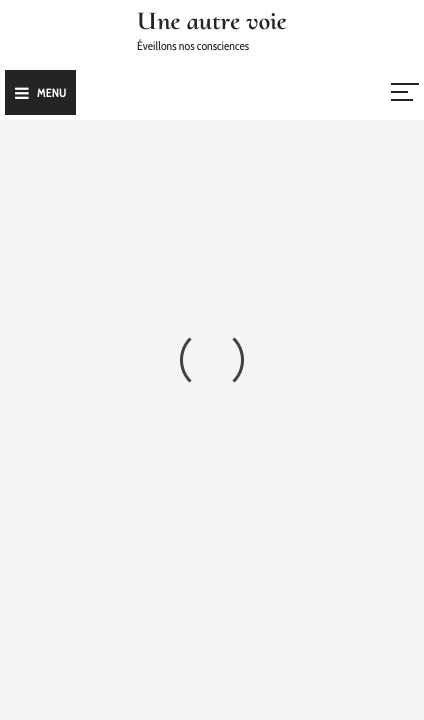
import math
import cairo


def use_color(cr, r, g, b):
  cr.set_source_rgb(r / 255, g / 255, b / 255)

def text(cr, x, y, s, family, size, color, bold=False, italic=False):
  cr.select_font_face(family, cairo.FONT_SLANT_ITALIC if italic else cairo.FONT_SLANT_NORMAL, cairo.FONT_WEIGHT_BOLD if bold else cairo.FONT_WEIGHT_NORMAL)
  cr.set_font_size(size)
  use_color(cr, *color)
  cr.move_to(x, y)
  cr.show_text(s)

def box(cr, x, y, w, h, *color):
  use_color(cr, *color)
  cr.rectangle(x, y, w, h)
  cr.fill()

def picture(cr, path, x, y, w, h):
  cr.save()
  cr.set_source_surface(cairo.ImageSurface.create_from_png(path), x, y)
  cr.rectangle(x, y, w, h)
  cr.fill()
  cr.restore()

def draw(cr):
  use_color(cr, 244, 244, 244)
  cr.paint()
  box(cr, 0, 0, 424, 120, 255, 255, 255)
  box(cr, 5, 70, 71, 45, 36, 36, 35)
  picture(cr, "img_01.png", 15, 87, 14, 12)
  box(cr, 391, 83, 28, 2, 36, 36, 35)
  box(cr, 391, 91, 17, 2, 36, 36, 35)
  box(cr, 391, 99, 22, 2, 36, 36, 35)
  cr.new_path()
  cr.move_to(233.5, 338.5)
  cr.curve_to(245.5, 350, 245.5, 370, 233.5, 381.5)
  use_color(cr, 64, 64, 64)
  cr.set_line_width(3)
  cr.stroke()
  cr.new_path()
  cr.move_to(190.5, 381.5)
  cr.curve_to(178.5, 370, 178.5, 350, 190.5, 338.5)
  cr.stroke()
  text(cr, 137, 29, "Une autre voie", "Cormorant Upright", 26, (36, 36, 35), bold=True)
  text(cr, 137, 50, "Éveillons nos consciences", "Cabin Condensed", 12, (36, 36, 35))
  text(cr, 37, 97, "MENU", "Cabin Condensed", 12, (255, 255, 255), bold=True)


surface = cairo.ImageSurface(cairo.FORMAT_RGB24, 424, 720)
cr = cairo.Context(surface)
options = cairo.FontOptions()
options.set_hint_metrics(cairo.HINT_METRICS_OFF)
options.set_hint_style(cairo.HINT_STYLE_NONE)
cr.set_font_options(options)
cr.set_miter_limit(4)
draw(cr)
surface.write_to_png("out.png")
